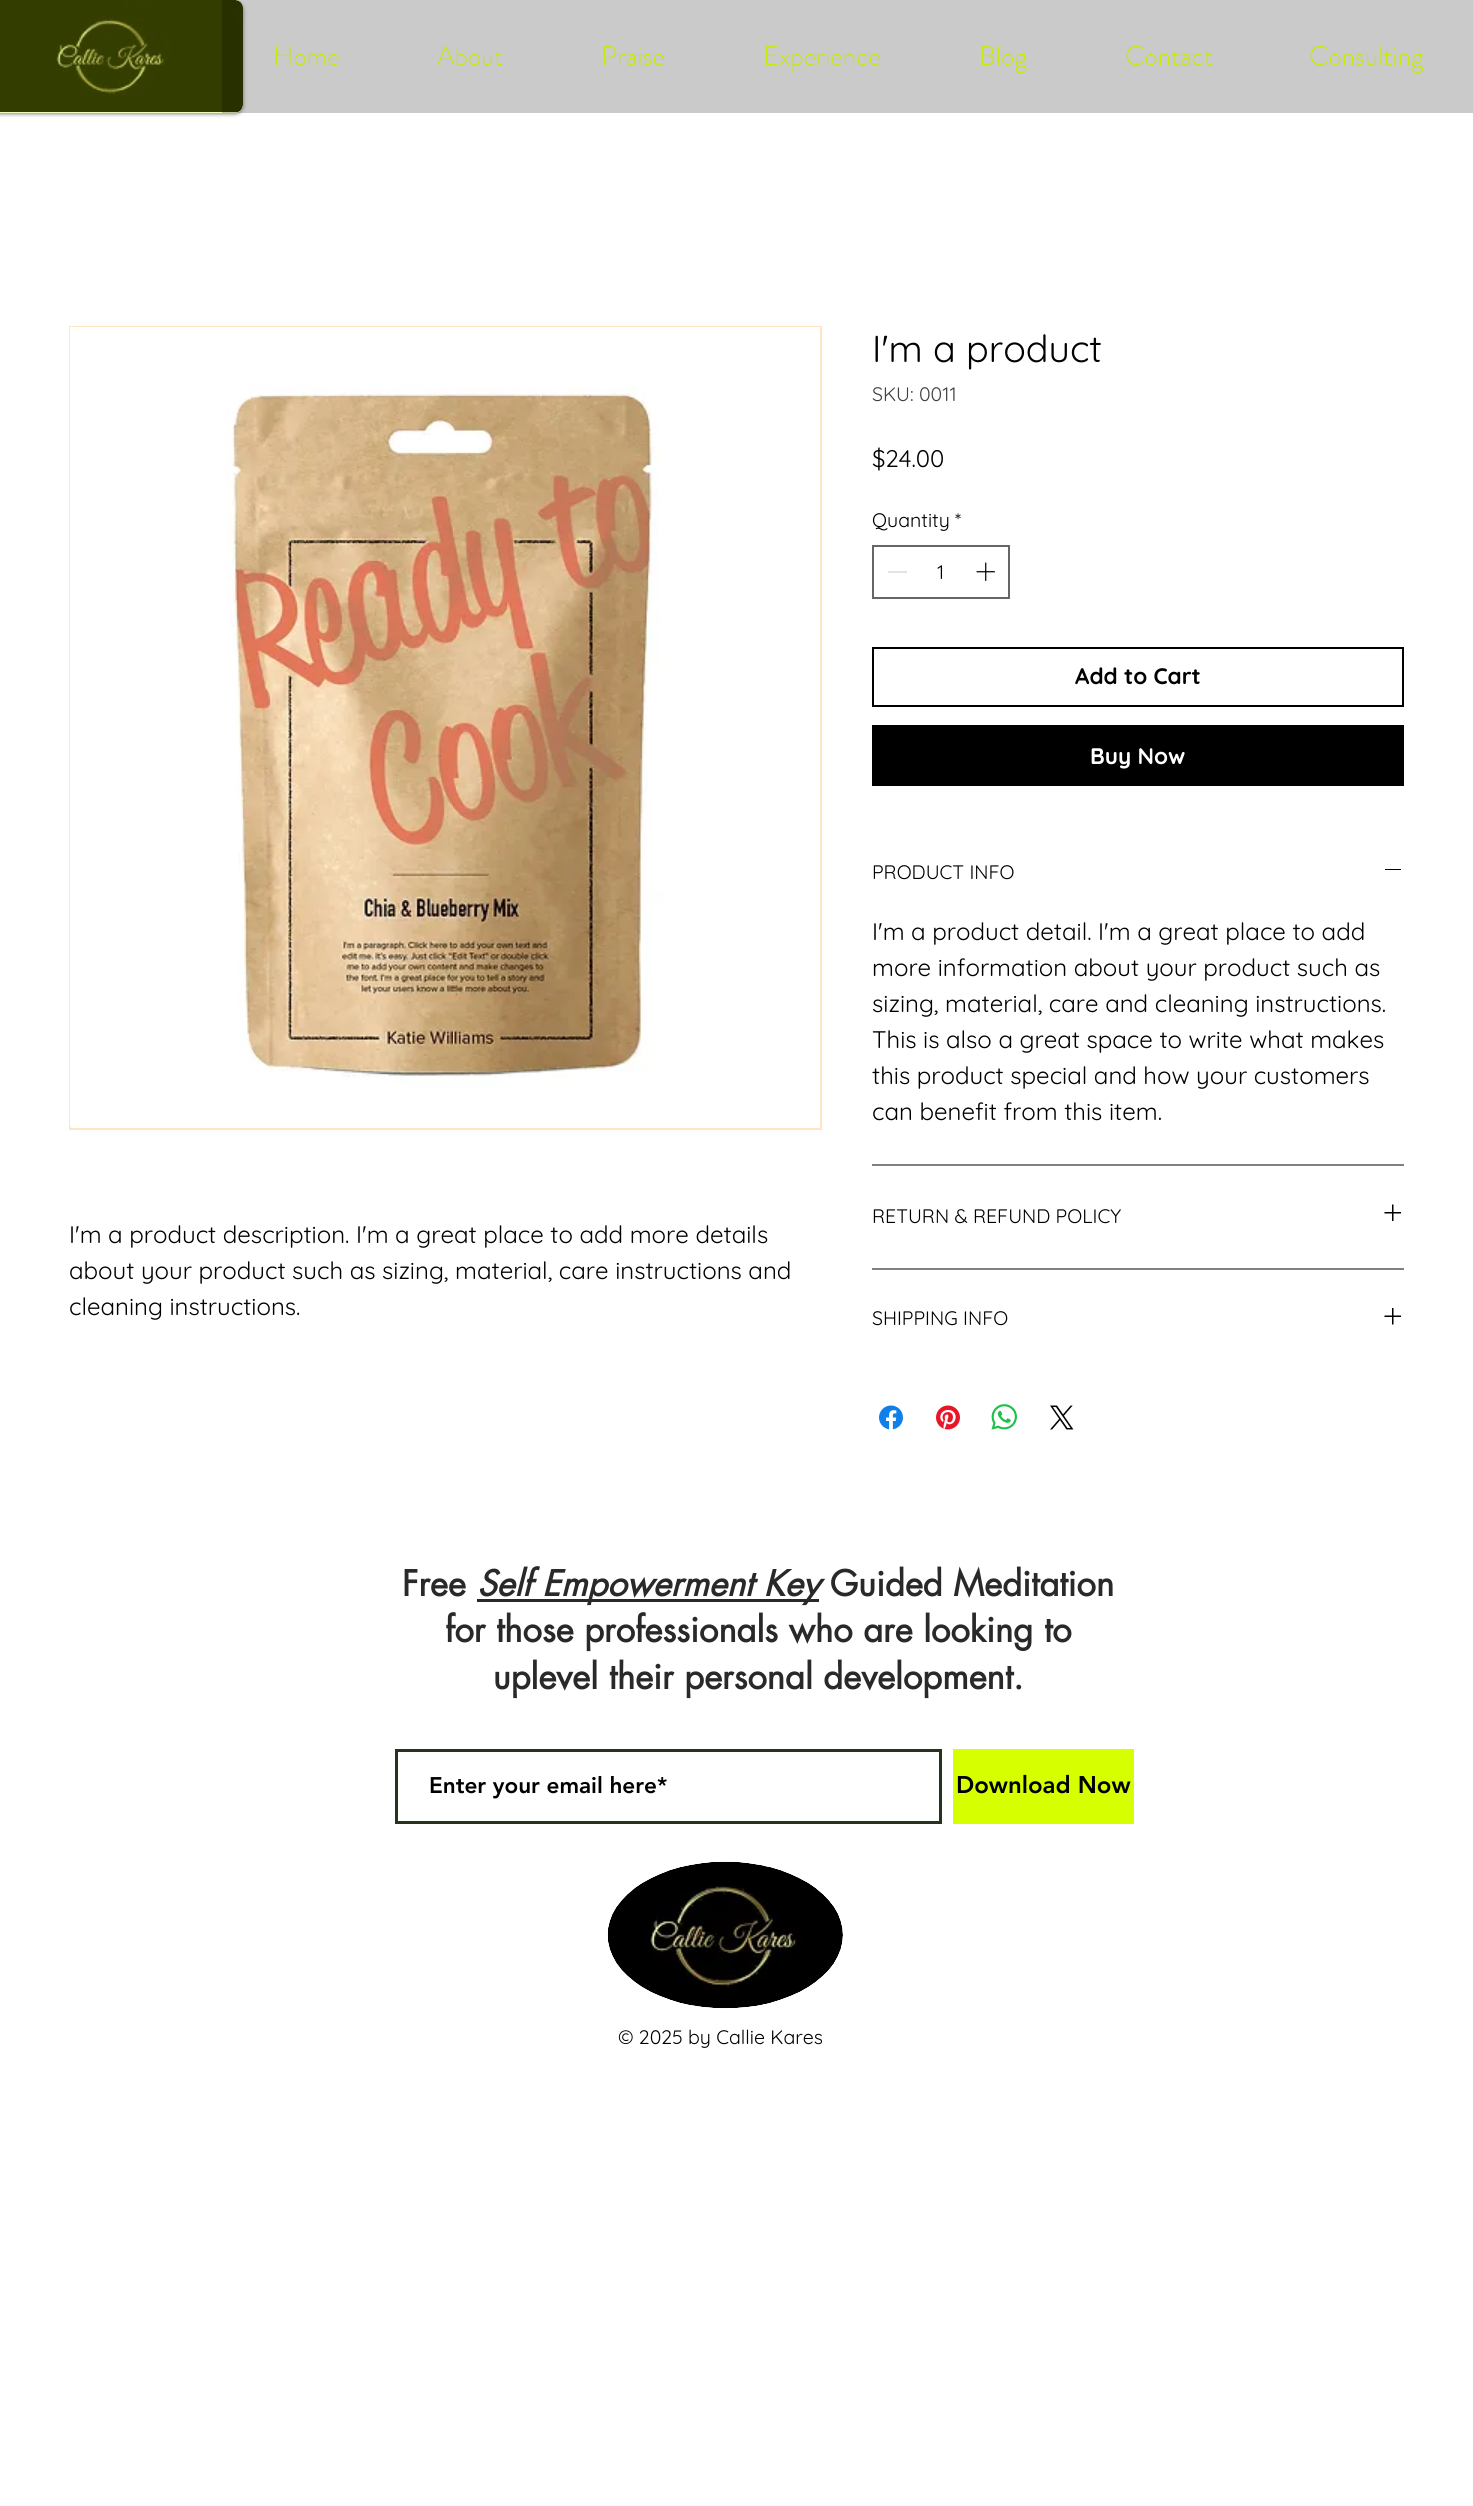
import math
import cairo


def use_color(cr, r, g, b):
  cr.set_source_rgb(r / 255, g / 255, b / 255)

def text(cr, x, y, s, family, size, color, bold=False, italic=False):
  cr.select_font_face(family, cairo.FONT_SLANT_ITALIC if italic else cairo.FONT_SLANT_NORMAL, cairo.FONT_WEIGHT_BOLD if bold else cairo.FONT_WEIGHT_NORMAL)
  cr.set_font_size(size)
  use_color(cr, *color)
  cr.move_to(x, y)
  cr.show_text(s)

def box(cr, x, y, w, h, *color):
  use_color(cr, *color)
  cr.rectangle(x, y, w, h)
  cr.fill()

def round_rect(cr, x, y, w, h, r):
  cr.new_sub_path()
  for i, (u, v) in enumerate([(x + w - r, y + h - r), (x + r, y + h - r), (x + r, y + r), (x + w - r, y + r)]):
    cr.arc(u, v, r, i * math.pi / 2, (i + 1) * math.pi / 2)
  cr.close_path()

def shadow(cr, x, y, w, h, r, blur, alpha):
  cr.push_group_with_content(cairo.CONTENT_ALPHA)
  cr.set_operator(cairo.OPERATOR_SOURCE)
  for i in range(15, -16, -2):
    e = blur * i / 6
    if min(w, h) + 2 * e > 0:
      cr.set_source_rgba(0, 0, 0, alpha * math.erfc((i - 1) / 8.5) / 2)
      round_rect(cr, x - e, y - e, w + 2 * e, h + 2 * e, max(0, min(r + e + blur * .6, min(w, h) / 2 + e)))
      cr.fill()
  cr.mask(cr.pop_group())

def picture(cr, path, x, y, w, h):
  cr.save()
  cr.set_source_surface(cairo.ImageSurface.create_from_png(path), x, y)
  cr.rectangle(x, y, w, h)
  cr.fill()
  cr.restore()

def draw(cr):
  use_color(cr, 255, 255, 255)
  cr.paint()
  use_color(cr, 0, 0, 0)
  shadow(cr, -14, 2, 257, 112, 8, 2, 0.5)
  use_color(cr, 255, 255, 255)
  round_rect(cr, -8, 0, 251, 113, 8)
  cr.fill()
  picture(cr, "img_01.png", 0, 0, 243, 113)
  cr.set_source_rgba(0.839, 1, 0, 0.24)
  round_rect(cr, -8, 0, 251, 113, 8)
  cr.fill()
  cr.set_source_rgba(0, 0, 0, 0.21)
  cr.rectangle(222, 0, 1251, 113)
  cr.fill()
  cr.rectangle(70, 327, 751, 802)
  use_color(cr, 254, 230, 196)
  cr.stroke()
  picture(cr, "img_02.png", 70, 327, 750, 800)
  cr.rectangle(873, 546, 136, 52)
  use_color(cr, 102, 102, 102)
  cr.stroke()
  box(cr, 888, 571, 19, 2, 227, 227, 227)
  picture(cr, "img_03.png", 976, 562, 19, 19)
  cr.rectangle(873, 648, 530, 58)
  use_color(cr, 0, 0, 0)
  cr.stroke()
  box(cr, 872, 725, 532, 61, 0, 0, 0)
  box(cr, 872, 1164, 532, 2, 128, 128, 128)
  box(cr, 1385, 869, 16, 1, 0, 0, 0)
  box(cr, 872, 1268, 532, 2, 128, 128, 128)
  picture(cr, "img_04.png", 1384, 1204, 17, 17)
  picture(cr, "img_05.png", 1384, 1308, 17, 17)
  picture(cr, "img_06.png", 879, 1405, 24, 25)
  picture(cr, "img_07.png", 936, 1405, 24, 25)
  picture(cr, "img_08.png", 991, 1404, 26, 26)
  picture(cr, "img_09.png", 1050, 1405, 24, 25)
  box(cr, 477, 1599, 342, 3, 41, 41, 41)
  cr.rectangle(396.5, 1750.5, 544, 72)
  use_color(cr, 39, 51, 27)
  cr.set_line_width(3)
  cr.stroke()
  box(cr, 953, 1749, 181, 75, 214, 255, 0)
  picture(cr, "img_10.png", 607, 1861, 236, 148)
  text(cr, 273, 65, "Home", "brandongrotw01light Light", 27, (198, 234, 5))
  text(cr, 437, 65, "About", "brandongrotw01light Light", 27, (198, 234, 5))
  text(cr, 601, 65, "Praise", "brandongrotw01light Light", 27, (198, 234, 5))
  text(cr, 763, 65, "Experience", "brandongrotw01light Light", 27, (198, 234, 5))
  text(cr, 979, 65, "Blog", "brandongrotw01light Light", 27, (198, 234, 5))
  text(cr, 1125, 65, "Contact", "brandongrotw01light Light", 27, (198, 234, 5))
  text(cr, 1309, 65, "Consulting", "brandongrotw01light Light", 27, (198, 234, 5))
  text(cr, 69, 1243, "I'm a product description. I'm a great place to add more details", "Quicksand", 24, (0, 0, 0))
  text(cr, 69, 1279, "about your product such as sizing, material, care instructions and", "Quicksand", 24, (0, 0, 0))
  text(cr, 69, 1315, "cleaning instructions.", "Quicksand", 24, (0, 0, 0))
  text(cr, 872, 362, "I'm a product", "Quicksand", 37.5, (0, 0, 0))
  text(cr, 872, 401, "SKU: 0011", "Quicksand", 19.5, (64, 64, 64))
  text(cr, 872, 467, "$24.00", "Quicksand", 24, (0, 0, 0))
  text(cr, 872, 527, "Quantity", "Quicksand", 19.5, (0, 0, 0))
  text(cr, 955, 527, "*", "Quicksand", 19.5, (0, 0, 0))
  text(cr, 937, 579, "1", "Quicksand", 19.5, (0, 0, 0))
  text(cr, 1075, 684, "Add to Cart", "Quicksand", 22.5, (0, 0, 0), bold=True)
  text(cr, 1090, 764, "Buy Now", "Quicksand", 22.5, (255, 255, 255), bold=True)
  text(cr, 872, 879, "PRODUCT INFO", "Quicksand", 19.5, (0, 0, 0))
  text(cr, 872, 940, "I'm a product detail. I'm a great place to add", "Quicksand", 24, (0, 0, 0))
  text(cr, 872, 976, "more information about your product such as", "Quicksand", 24, (0, 0, 0))
  text(cr, 872, 1012, "sizing, material, care and cleaning instructions.", "Quicksand", 24, (0, 0, 0))
  text(cr, 872, 1048, "This is also a great space to write what makes", "Quicksand", 24, (0, 0, 0))
  text(cr, 872, 1084, "this product special and how your customers", "Quicksand", 24, (0, 0, 0))
  text(cr, 872, 1120, "can benefit from this item.", "Quicksand", 24, (0, 0, 0))
  text(cr, 872, 1223, "RETURN & REFUND POLICY", "Quicksand", 19.5, (0, 0, 0))
  text(cr, 872, 1325, "SHIPPING INFO", "Quicksand", 19.5, (0, 0, 0))
  text(cr, 402, 1596, "Free", "futura", 34.5, (41, 41, 41), bold=True)
  text(cr, 477, 1596, "Self Empowerment Key", "futura", 34.5, (41, 41, 41), bold=True, italic=True)
  text(cr, 830, 1596, "Guided Meditation", "futura", 34.5, (41, 41, 41), bold=True)
  text(cr, 445, 1642, "for those professionals who are looking to", "futura", 34.5, (41, 41, 41), bold=True)
  text(cr, 493, 1689, "uplevel their personal development.", "futura", 34.5, (41, 41, 41), bold=True)
  text(cr, 429, 1793, "Enter your email here*", "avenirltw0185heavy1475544 Black", 22.5, (0, 0, 0))
  text(cr, 956, 1793, "Download Now", "avenirltw0185heavy1475544 Black", 24, (0, 0, 0))
  text(cr, 618, 2044, "© 2025 by Callie Kares", "Quicksand", 19.5, (0, 0, 0))


surface = cairo.ImageSurface(cairo.FORMAT_RGB24, 1473, 2506)
cr = cairo.Context(surface)
options = cairo.FontOptions()
options.set_hint_metrics(cairo.HINT_METRICS_OFF)
options.set_hint_style(cairo.HINT_STYLE_NONE)
cr.set_font_options(options)
cr.set_miter_limit(4)
draw(cr)
surface.write_to_png("out.png")
